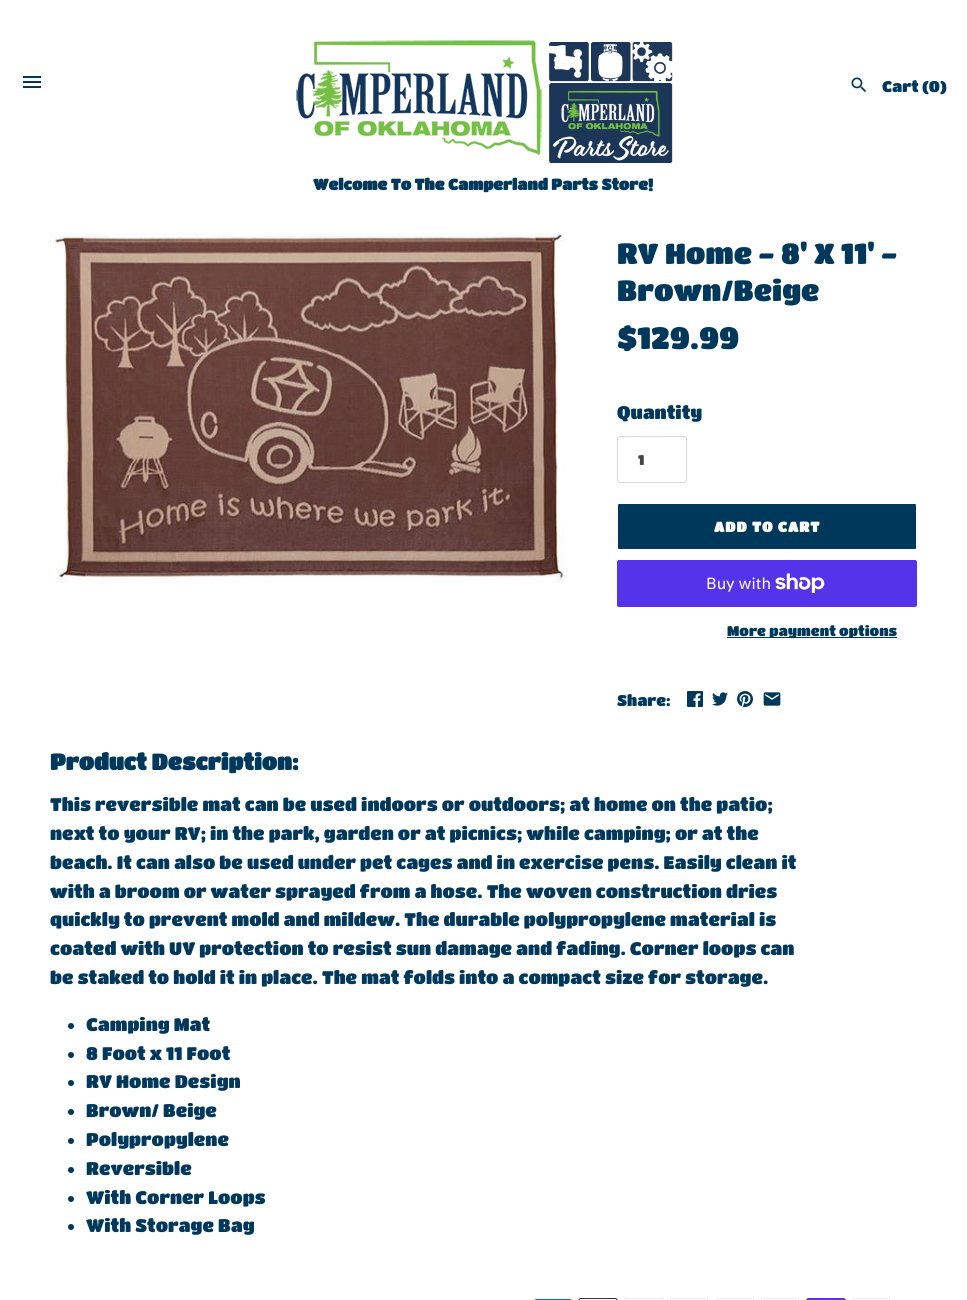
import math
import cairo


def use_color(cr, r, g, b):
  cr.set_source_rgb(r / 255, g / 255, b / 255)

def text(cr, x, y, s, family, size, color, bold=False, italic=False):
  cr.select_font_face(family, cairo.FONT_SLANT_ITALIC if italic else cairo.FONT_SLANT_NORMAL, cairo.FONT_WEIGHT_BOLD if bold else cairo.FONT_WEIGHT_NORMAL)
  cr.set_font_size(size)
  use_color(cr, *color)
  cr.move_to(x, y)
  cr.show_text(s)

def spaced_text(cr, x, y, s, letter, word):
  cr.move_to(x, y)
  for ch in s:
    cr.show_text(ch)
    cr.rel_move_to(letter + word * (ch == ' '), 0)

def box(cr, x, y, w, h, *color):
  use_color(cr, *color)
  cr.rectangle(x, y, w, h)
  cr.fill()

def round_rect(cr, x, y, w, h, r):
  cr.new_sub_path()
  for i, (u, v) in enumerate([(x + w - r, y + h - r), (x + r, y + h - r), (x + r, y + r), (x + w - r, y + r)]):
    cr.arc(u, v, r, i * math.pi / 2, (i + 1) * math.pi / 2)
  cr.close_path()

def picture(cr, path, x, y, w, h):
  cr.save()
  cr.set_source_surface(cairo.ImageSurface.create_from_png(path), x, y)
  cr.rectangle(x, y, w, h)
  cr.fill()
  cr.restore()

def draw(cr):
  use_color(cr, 255, 255, 255)
  cr.paint()
  picture(cr, "img_01.png", 23, 76, 18, 12)
  picture(cr, "img_02.png", 296, 40, 246, 115)
  picture(cr, "img_03.png", 549, 42, 124, 123)
  picture(cr, "img_04.png", 851, 77, 15, 15)
  picture(cr, "img_05.png", 50, 234, 515, 349)
  round_rect(cr, 617.5, 436.5, 69, 46, 2.5)
  use_color(cr, 217, 217, 217)
  cr.set_line_width(1)
  cr.stroke()
  use_color(cr, 0, 56, 92)
  round_rect(cr, 617.5, 503.5, 299, 46, 1.5)
  cr.fill_preserve()
  use_color(cr, 255, 255, 255)
  cr.stroke()
  use_color(cr, 84, 51, 235)
  round_rect(cr, 617, 560, 300, 47, 2)
  cr.fill()
  picture(cr, "img_06.png", 775, 573, 50, 20)
  box(cr, 727, 637, 170, 1, 0, 56, 92)
  picture(cr, "img_07.png", 687, 691, 16, 16)
  picture(cr, "img_08.png", 712, 692, 16, 14)
  picture(cr, "img_09.png", 737, 691, 16, 16)
  picture(cr, "img_10.png", 763, 692, 18, 14)
  cr.arc(71, 1026, 3, 0, 2 * math.pi)
  cr.fill()
  cr.arc(71, 1055, 3, 0, 2 * math.pi)
  cr.fill()
  cr.arc(71, 1083, 3, 0, 2 * math.pi)
  cr.fill()
  cr.arc(71, 1112, 3, 0, 2 * math.pi)
  cr.fill()
  cr.arc(71, 1141, 3, 0, 2 * math.pi)
  cr.fill()
  cr.arc(71, 1170, 3, 0, 2 * math.pi)
  cr.fill()
  cr.arc(71, 1199, 3, 0, 2 * math.pi)
  cr.fill()
  cr.arc(71, 1227, 3, 0, 2 * math.pi)
  cr.fill()
  picture(cr, "img_11.png", 534, 1298, 38, 2)
  picture(cr, "img_12.png", 578, 1298, 40, 2)
  picture(cr, "img_13.png", 625, 1298, 38, 2)
  picture(cr, "img_13.png", 670, 1298, 38, 2)
  picture(cr, "img_14.png", 716, 1298, 38, 2)
  picture(cr, "img_14.png", 761, 1298, 38, 2)
  picture(cr, "img_15.png", 806, 1298, 40, 2)
  picture(cr, "img_14.png", 852, 1298, 38, 2)
  text(cr, 882, 92, "Cart (0)", "Titan One", 15.3, (0, 56, 92))
  text(cr, 313, 190, "Welcome To The Camperland Parts Store!", "Titan One", 15.3, (0, 56, 92), bold=True)
  text(cr, 617, 264, "RV Home - 8' X 11' -", "Titan One", 28.75, (0, 56, 92))
  text(cr, 617, 301, "Brown/Beige", "Titan One", 28.75, (0, 56, 92))
  text(cr, 617, 349, "$129.99", "Titan One", 30.5, (0, 56, 92))
  text(cr, 617, 419, "Quantity", "Titan One", 18, (0, 56, 92))
  text(cr, 638, 465, "1", "Titan One", 14, (68, 68, 68))
  cr.select_font_face("Titan One", cairo.FONT_SLANT_NORMAL, cairo.FONT_WEIGHT_BOLD)
  use_color(cr, 255, 255, 255)
  spaced_text(cr, 714, 532, "ADD TO CART", 1, 0)
  text(cr, 706, 589, "Buy with", "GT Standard", 16, (255, 255, 255))
  text(cr, 727, 636, "More payment options", "Titan One", 14, (0, 56, 92))
  text(cr, 617, 706, "Share:", "Titan One", 15.3, (0, 56, 92))
  text(cr, 50, 770, "Product Description:", "Titan One", 22.2, (0, 56, 92), bold=True)
  text(cr, 50, 811, "This reversible mat can be used indoors or outdoors; at home on the patio;", "Titan One", 18, (0, 56, 92))
  text(cr, 50, 840, "next to your RV; in the park, garden or at picnics; while camping; or at the", "Titan One", 18, (0, 56, 92))
  text(cr, 50, 869, "beach. It can also be used under pet cages and in exercise pens. Easily clean it", "Titan One", 18, (0, 56, 92))
  text(cr, 50, 898, "with a broom or water sprayed from a hose. The woven construction dries", "Titan One", 18, (0, 56, 92))
  text(cr, 50, 926, "quickly to prevent mold and mildew. The durable polypropylene material is", "Titan One", 18, (0, 56, 92))
  text(cr, 50, 955, "coated with UV protection to resist sun damage and fading. Corner loops can", "Titan One", 18, (0, 56, 92))
  text(cr, 50, 984, "be staked to hold it in place. The mat folds into a compact size for storage.", "Titan One", 18, (0, 56, 92))
  text(cr, 86, 1031, "Camping Mat", "Titan One", 18, (0, 56, 92))
  text(cr, 86, 1060, "8 Foot x 11 Foot", "Titan One", 18, (0, 56, 92))
  text(cr, 86, 1088, "RV Home Design", "Titan One", 18, (0, 56, 92))
  text(cr, 86, 1117, "Brown/ Beige", "Titan One", 18, (0, 56, 92))
  text(cr, 86, 1146, "Polypropylene", "Titan One", 18, (0, 56, 92))
  text(cr, 86, 1175, "Reversible", "Titan One", 18, (0, 56, 92))
  text(cr, 86, 1204, "With Corner Loops", "Titan One", 18, (0, 56, 92))
  text(cr, 86, 1232, "With Storage Bag", "Titan One", 18, (0, 56, 92))


surface = cairo.ImageSurface(cairo.FORMAT_RGB24, 967, 1300)
cr = cairo.Context(surface)
options = cairo.FontOptions()
options.set_hint_metrics(cairo.HINT_METRICS_OFF)
options.set_hint_style(cairo.HINT_STYLE_NONE)
cr.set_font_options(options)
cr.set_miter_limit(4)
draw(cr)
surface.write_to_png("out.png")
